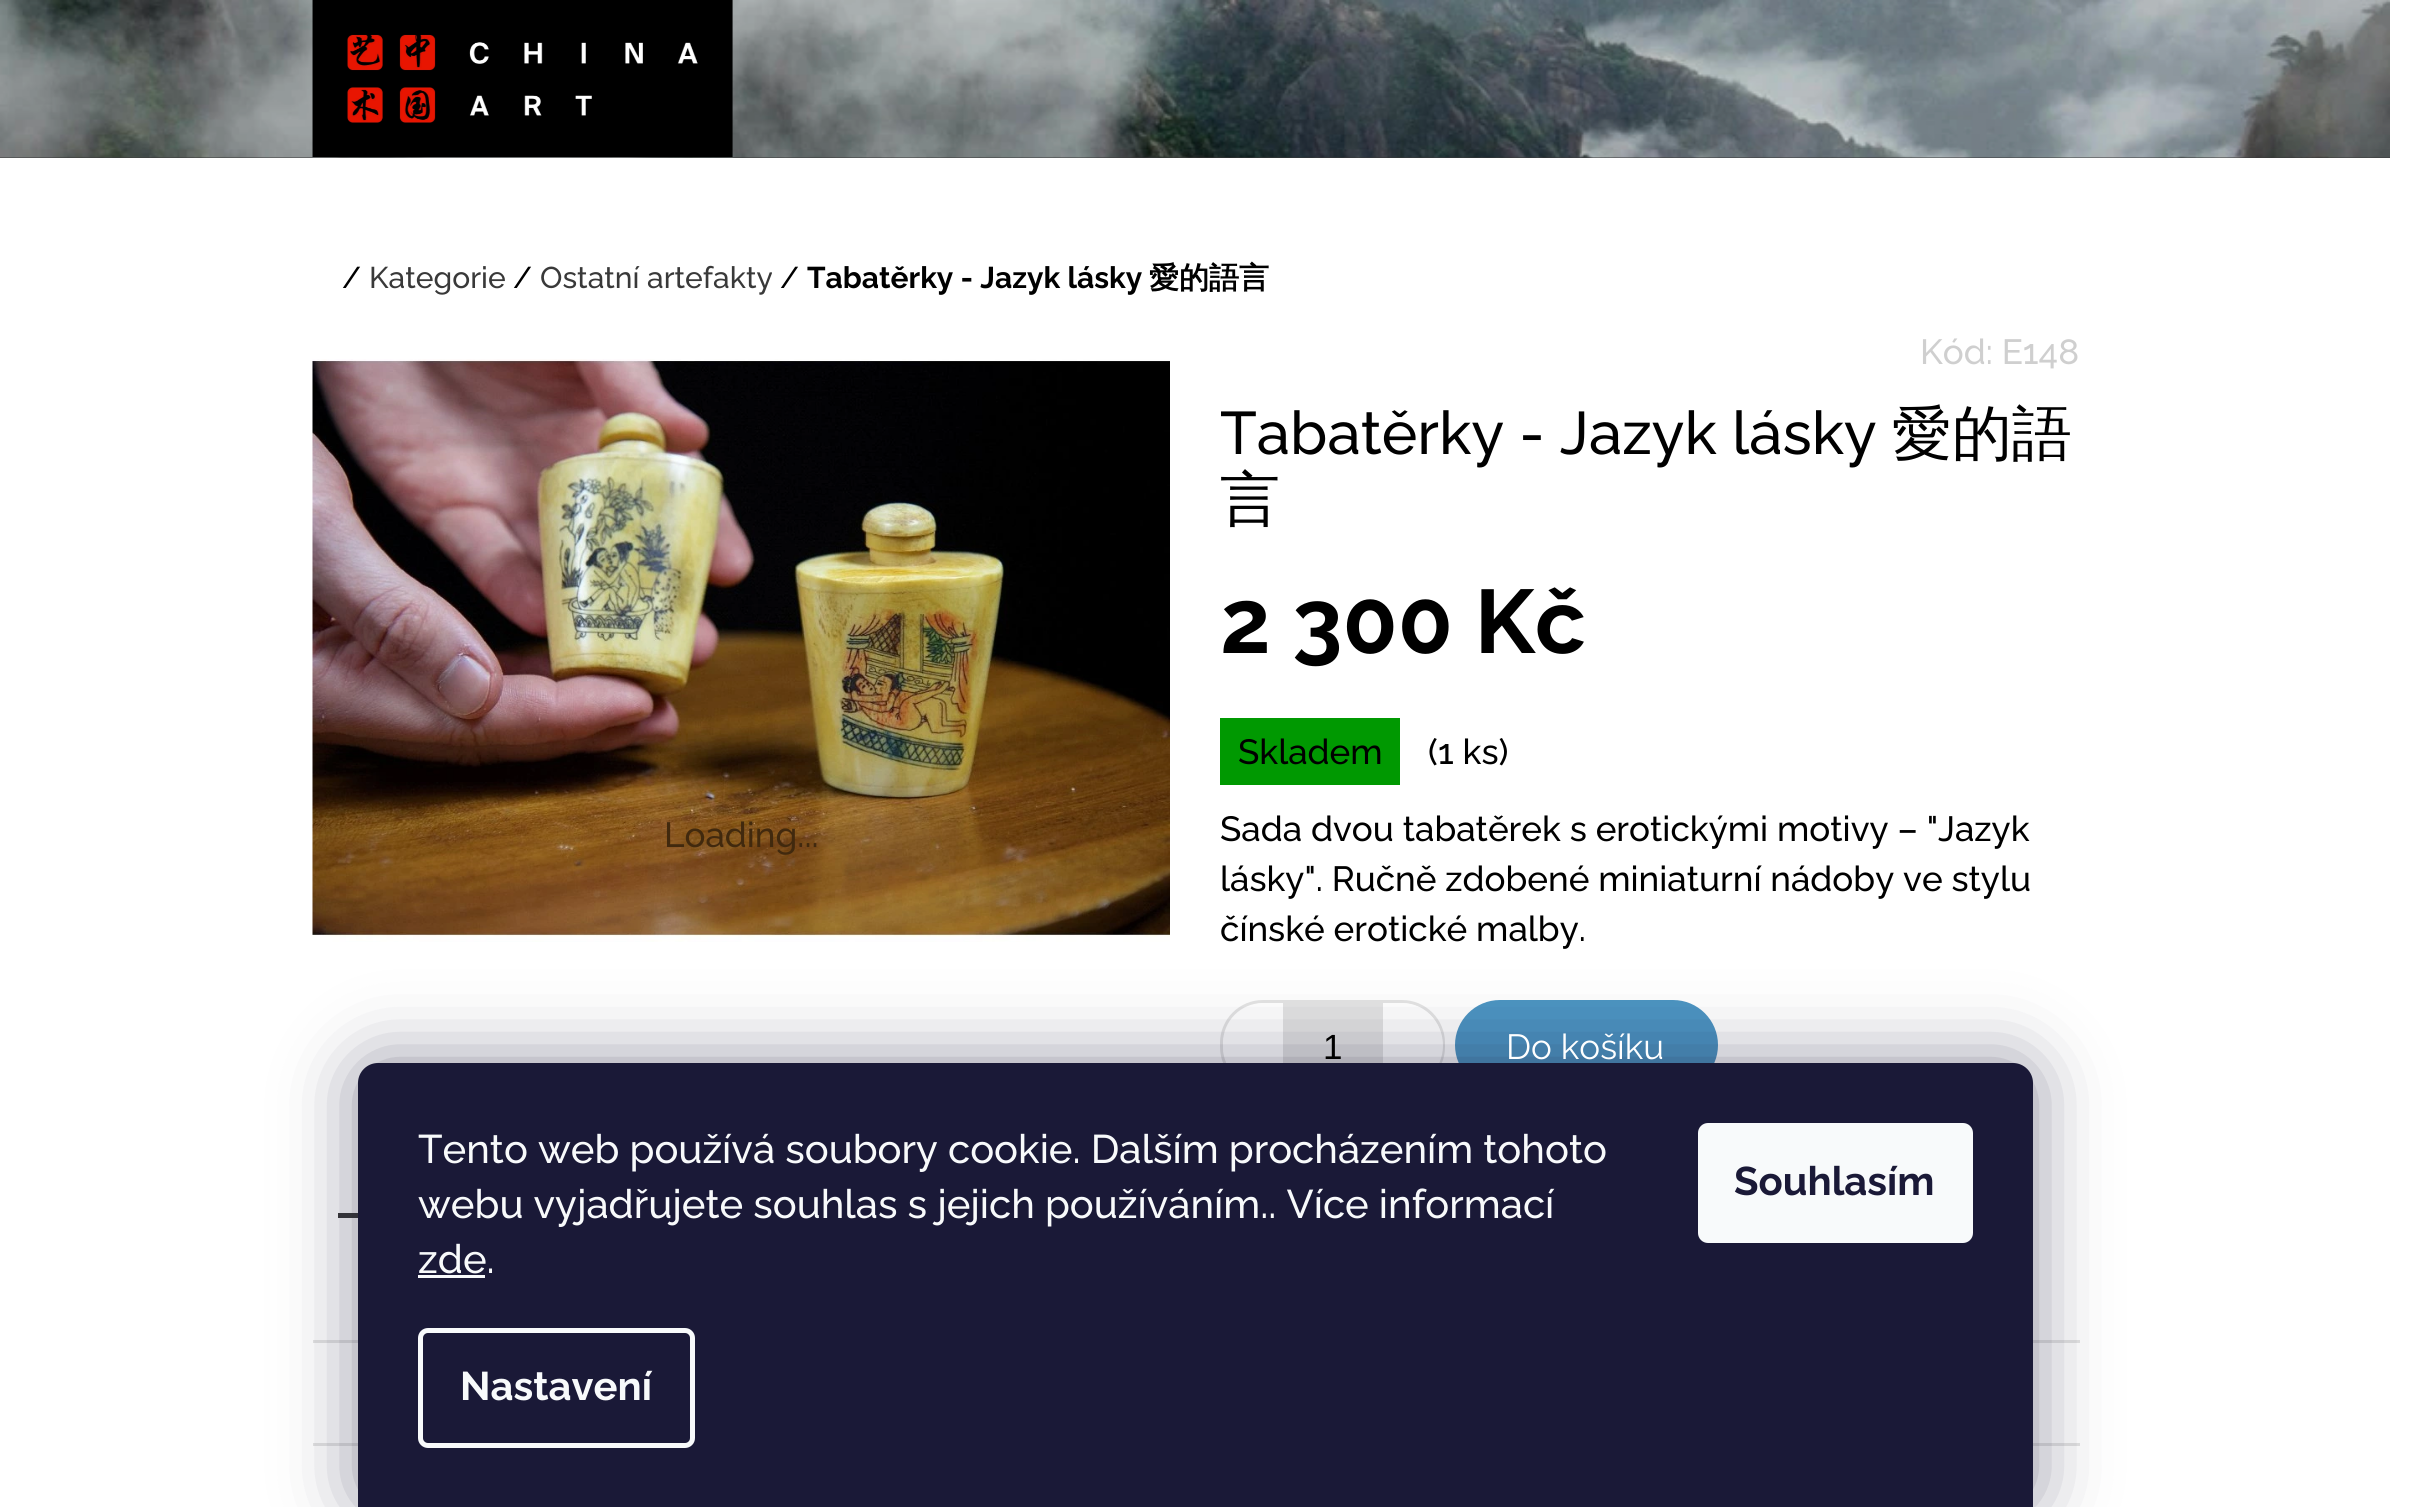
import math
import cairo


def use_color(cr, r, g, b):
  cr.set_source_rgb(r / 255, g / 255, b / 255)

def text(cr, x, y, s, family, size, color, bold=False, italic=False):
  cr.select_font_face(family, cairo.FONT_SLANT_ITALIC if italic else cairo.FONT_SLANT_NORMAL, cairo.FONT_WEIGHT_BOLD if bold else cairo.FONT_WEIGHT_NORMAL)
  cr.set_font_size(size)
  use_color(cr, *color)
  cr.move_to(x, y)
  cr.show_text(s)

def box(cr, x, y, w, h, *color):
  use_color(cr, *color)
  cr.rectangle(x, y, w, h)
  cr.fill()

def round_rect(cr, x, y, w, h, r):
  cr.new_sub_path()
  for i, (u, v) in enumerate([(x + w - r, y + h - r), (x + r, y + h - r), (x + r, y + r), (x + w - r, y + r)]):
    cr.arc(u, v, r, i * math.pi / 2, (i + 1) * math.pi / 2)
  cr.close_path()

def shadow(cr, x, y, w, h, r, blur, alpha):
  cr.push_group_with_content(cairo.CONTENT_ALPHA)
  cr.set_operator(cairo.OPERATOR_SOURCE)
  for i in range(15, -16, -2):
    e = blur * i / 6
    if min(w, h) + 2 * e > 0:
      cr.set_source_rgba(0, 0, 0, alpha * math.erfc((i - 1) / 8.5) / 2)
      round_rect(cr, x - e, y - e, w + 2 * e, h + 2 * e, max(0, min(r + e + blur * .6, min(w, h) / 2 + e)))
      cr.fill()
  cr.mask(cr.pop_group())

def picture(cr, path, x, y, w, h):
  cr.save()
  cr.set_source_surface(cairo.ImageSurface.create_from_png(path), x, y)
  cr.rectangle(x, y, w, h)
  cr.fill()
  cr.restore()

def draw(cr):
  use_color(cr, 255, 255, 255)
  cr.paint()
  box(cr, 0, 157, 2390, 1, 57, 57, 57)
  picture(cr, "img_01.png", 0, 0, 2390, 158)
  picture(cr, "img_02.png", 312, 0, 421, 157)
  picture(cr, "img_03.png", 312, 359, 858, 583)
  box(cr, 338, 1213, 20, 5, 57, 57, 57)
  box(cr, 1220, 718, 180, 67, 0, 153, 1)
  round_rect(cr, 1221.5, 1001.5, 222, 87, 41.5)
  use_color(cr, 227, 227, 227)
  cr.set_line_width(3)
  cr.stroke()
  use_color(cr, 255, 255, 255)
  cr.new_path()
  cr.move_to(1265.5, 1003)
  cr.line_to(1283, 1003)
  cr.line_to(1283, 1088)
  cr.line_to(1265.5, 1088)
  cr.curve_to(1242, 1088, 1223, 1069, 1223, 1045.5)
  cr.curve_to(1223, 1022, 1242, 1003, 1265.5, 1003)
  cr.close_path()
  cr.fill()
  box(cr, 1283, 1003, 100, 60, 227, 227, 227)
  use_color(cr, 255, 255, 255)
  cr.new_path()
  cr.move_to(1383, 1003)
  cr.line_to(1400.5, 1003)
  cr.curve_to(1424, 1003, 1443, 1022, 1443, 1045.5)
  cr.curve_to(1443, 1069, 1424, 1088, 1400.5, 1088)
  cr.line_to(1383, 1088)
  cr.close_path()
  cr.fill()
  use_color(cr, 76, 148, 194)
  round_rect(cr, 1456.5, 1001.5, 260, 87, 43.5)
  cr.fill_preserve()
  cr.stroke()
  box(cr, 313, 1340, 1767, 3, 227, 227, 227)
  box(cr, 313, 1443, 1767, 3, 227, 227, 227)
  use_color(cr, 27, 25, 57)
  shadow(cr, 358, 1063, 1675, 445, 20, 37.5, 0.5)
  use_color(cr, 26, 25, 55)
  cr.new_path()
  cr.move_to(378, 1063)
  cr.line_to(2013, 1063)
  cr.curve_to(2024, 1063, 2033, 1072, 2033, 1083)
  cr.line_to(2033, 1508)
  cr.line_to(358, 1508)
  cr.line_to(358, 1083)
  cr.curve_to(358, 1072, 367, 1063, 378, 1063)
  cr.close_path()
  cr.fill()
  box(cr, 418, 1275, 67, 3, 248, 250, 251)
  round_rect(cr, 420.5, 1330.5, 272, 115, 7.5)
  cr.set_line_width(5)
  cr.stroke()
  round_rect(cr, 1698, 1123, 275, 120, 10)
  cr.fill()
  text(cr, 342, 288, "/", "Raleway Medium", 30, (0, 0, 0))
  text(cr, 369, 288, "Kategorie", "Raleway Medium", 30, (57, 57, 57))
  text(cr, 513, 288, "/", "Raleway Medium", 30, (0, 0, 0))
  text(cr, 540, 288, "Ostatní artefakty", "Raleway Medium", 30, (57, 57, 57))
  text(cr, 780, 288, "/", "Raleway Medium", 30, (0, 0, 0))
  text(cr, 807, 288, "Tabatěrky - Jazyk lásky", "Raleway", 30, (0, 0, 0), bold=True)
  text(cr, 1149, 288, "愛的語言", "WenQuanYi Zen Hei", 30, (0, 0, 0), bold=True)
  text(cr, 664, 847, "Loading...", "Raleway Medium", 35, (65, 41, 14))
  text(cr, 1920, 364, "Kód: E148", "Raleway Medium", 35, (207, 207, 207))
  text(cr, 1220, 454, "Tabatěrky - Jazyk lásky", "Raleway Medium", 60, (0, 0, 0))
  text(cr, 1892, 454, "愛的語", "WenQuanYi Zen Hei Medium", 60, (0, 0, 0))
  text(cr, 1220, 520, "言", "WenQuanYi Zen Hei Medium", 60, (0, 0, 0))
  text(cr, 1220, 653, "2 300 Kč", "Raleway", 90, (0, 0, 0), bold=True)
  text(cr, 1238, 764, "Skladem", "Raleway Medium", 35, (0, 0, 0))
  text(cr, 1428, 764, "(1 ks)", "Raleway Medium", 35, (0, 0, 0))
  text(cr, 1220, 841, "Sada dvou tabatěrek s erotickými motivy – \"Jazyk", "Raleway Medium", 35, (0, 0, 0))
  text(cr, 1220, 891, "lásky\". Ručně zdobené miniaturní nádoby ve stylu", "Raleway Medium", 35, (0, 0, 0))
  text(cr, 1220, 941, "čínské erotické malby.", "Raleway Medium", 35, (0, 0, 0))
  text(cr, 1323, 1059, "1", "Liberation Sans", 35, (0, 0, 0))
  text(cr, 1506, 1059, "Do košíku", "Raleway", 35, (255, 255, 255))
  text(cr, 418, 1163, "Tento web používá soubory cookie. Dalším procházením tohoto", "Raleway Medium", 40, (248, 250, 251))
  text(cr, 418, 1218, "webu vyjadřujete souhlas s jejich používáním.. Více informací", "Raleway Medium", 40, (248, 250, 251))
  text(cr, 418, 1273, "zde.", "Raleway Medium", 40, (248, 250, 251))
  text(cr, 460, 1400, "Nastavení", "Raleway", 40, (248, 250, 251), bold=True)
  text(cr, 1734, 1195, "Souhlasím", "Raleway", 40, (26, 25, 55), bold=True)


surface = cairo.ImageSurface(cairo.FORMAT_RGB24, 2427, 1507)
cr = cairo.Context(surface)
options = cairo.FontOptions()
options.set_hint_metrics(cairo.HINT_METRICS_OFF)
options.set_hint_style(cairo.HINT_STYLE_NONE)
cr.set_font_options(options)
cr.set_miter_limit(4)
draw(cr)
surface.write_to_png("out.png")
